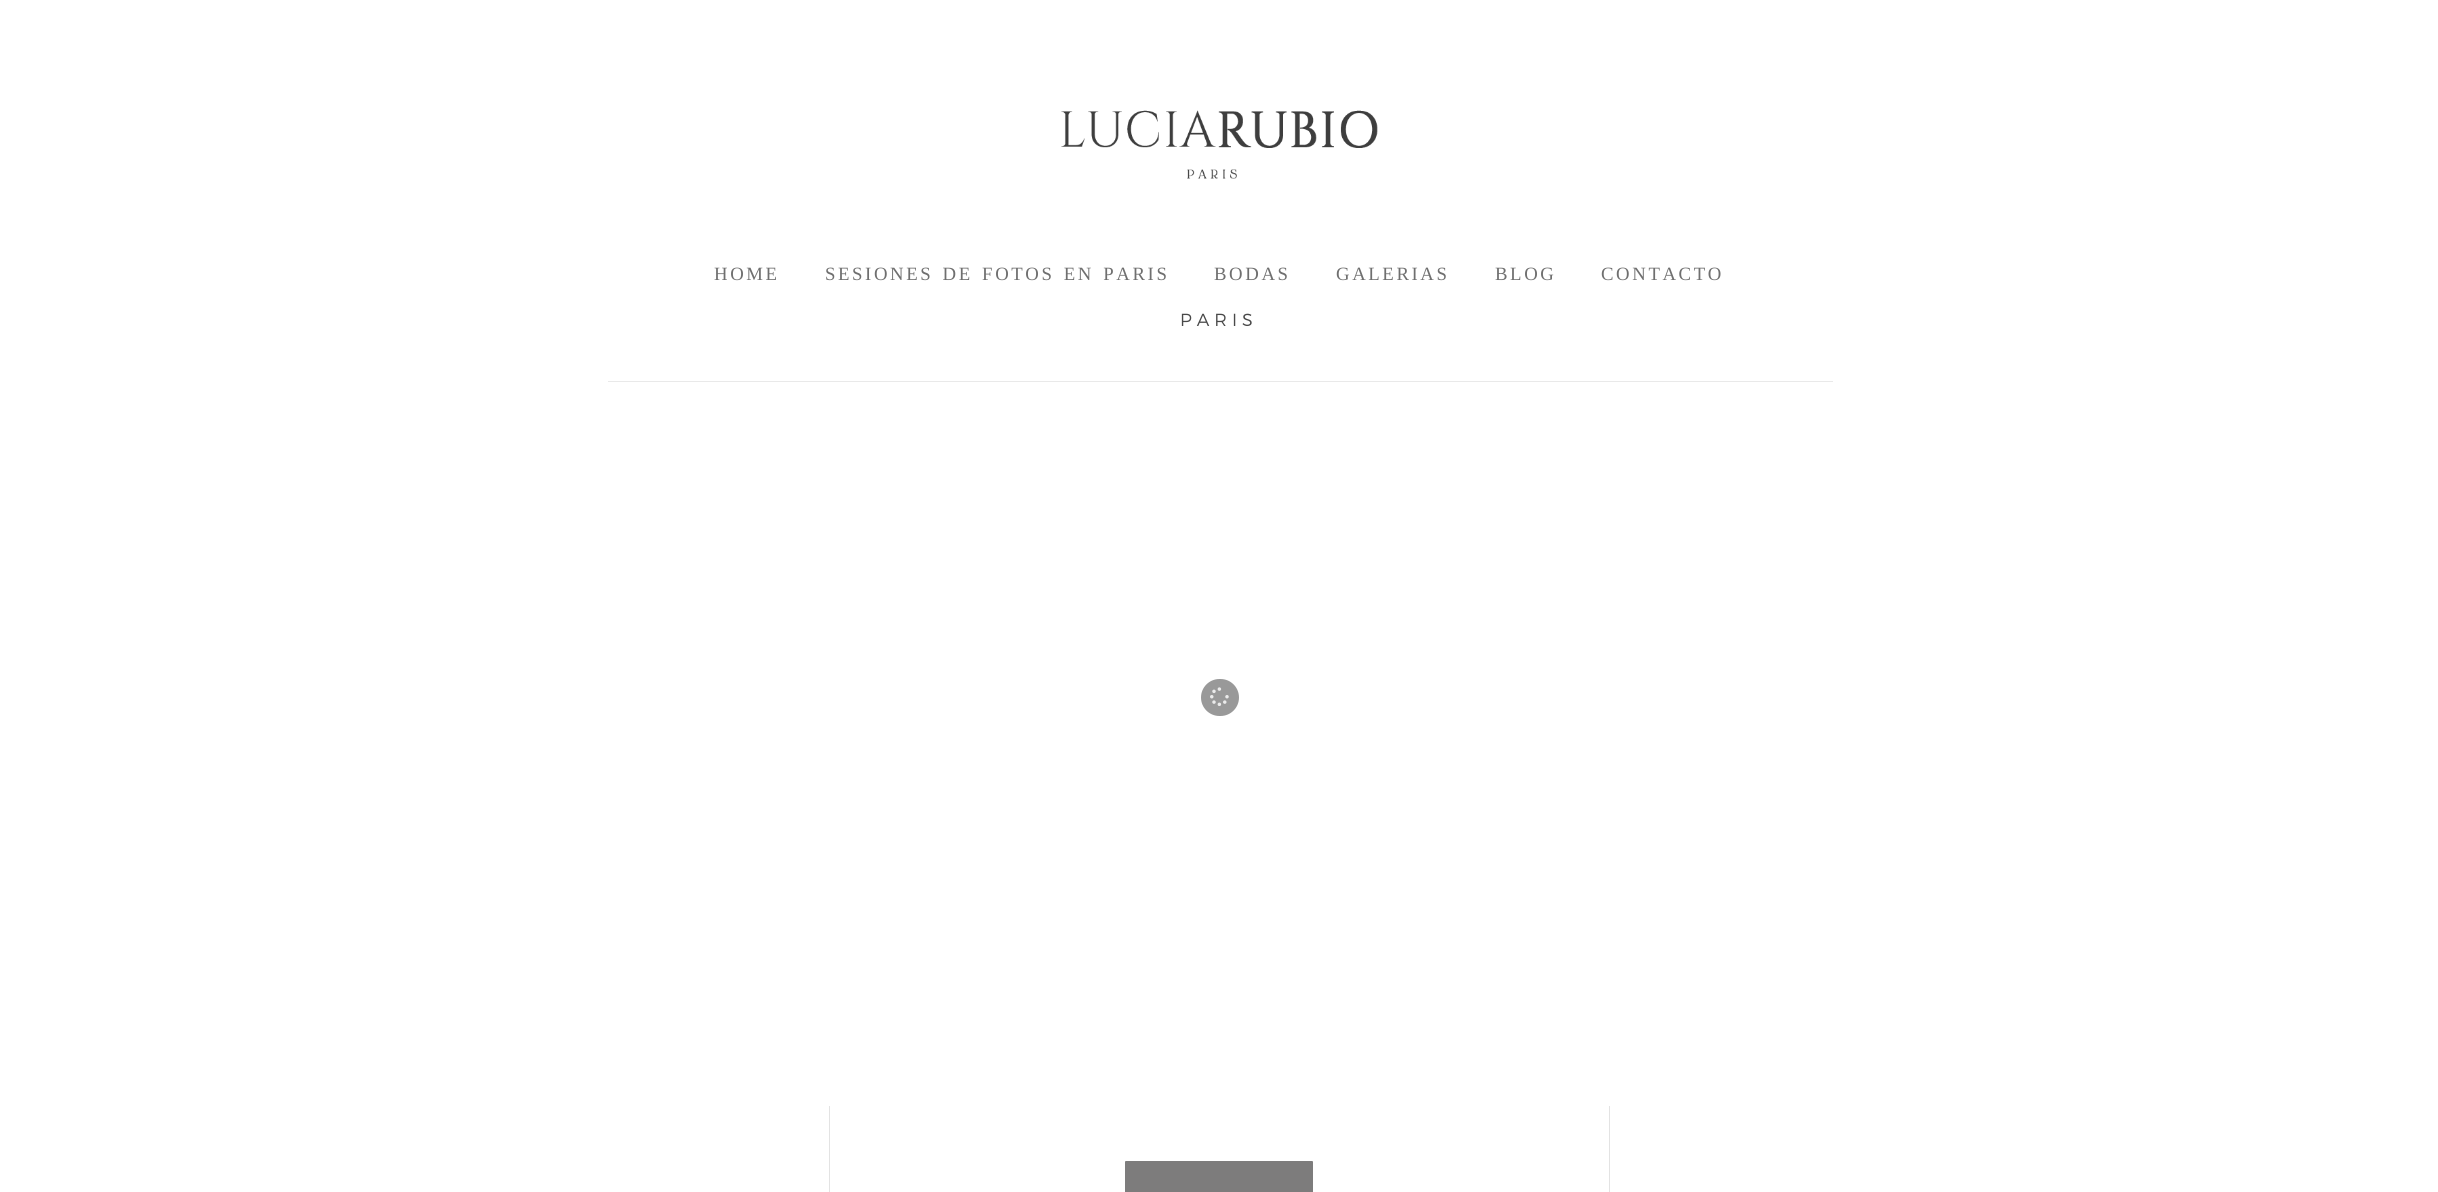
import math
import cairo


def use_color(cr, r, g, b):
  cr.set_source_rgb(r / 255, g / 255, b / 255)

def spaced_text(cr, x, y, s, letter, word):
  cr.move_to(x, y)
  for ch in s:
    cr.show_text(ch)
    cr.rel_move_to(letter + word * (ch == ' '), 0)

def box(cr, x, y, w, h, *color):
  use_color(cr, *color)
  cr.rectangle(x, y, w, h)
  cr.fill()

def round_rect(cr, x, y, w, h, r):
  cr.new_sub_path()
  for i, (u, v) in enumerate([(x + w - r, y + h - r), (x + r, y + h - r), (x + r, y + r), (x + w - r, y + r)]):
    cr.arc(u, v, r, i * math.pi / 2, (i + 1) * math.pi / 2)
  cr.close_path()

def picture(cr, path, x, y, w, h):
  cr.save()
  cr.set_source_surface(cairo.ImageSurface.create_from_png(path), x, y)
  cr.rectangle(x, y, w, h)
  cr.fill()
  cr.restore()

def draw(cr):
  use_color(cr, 255, 255, 255)
  cr.paint()
  picture(cr, "img_01.png", 1061, 110, 317, 69)
  box(cr, 608, 381, 1225, 1, 233, 233, 233)
  use_color(cr, 153, 153, 153)
  round_rect(cr, 1201, 679, 38, 37, 18.5)
  cr.fill()
  picture(cr, "img_02.png", 1210, 687, 19, 19)
  box(cr, 1609, 1106, 1, 86, 227, 227, 227)
  box(cr, 829, 1106, 1, 86, 227, 227, 227)
  use_color(cr, 125, 124, 124)
  round_rect(cr, 1125, 1161, 188, 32, 1)
  cr.fill()
  cr.select_font_face("Liberation Serif")
  cr.set_font_size(18.75)
  use_color(cr, 111, 111, 111)
  spaced_text(cr, 714, 280, "HOME", 2.6, 0)
  spaced_text(cr, 825, 280, "SESIONES DE FOTOS EN PARIS", 2.6, 2)
  spaced_text(cr, 1214, 280, "BODAS", 2.6, 0)
  spaced_text(cr, 1336, 280, "GALERIAS", 2.6, 0)
  spaced_text(cr, 1495, 280, "BLOG", 2.6, 0)
  spaced_text(cr, 1601, 280, "CONTACTO", 2.6, 0)
  cr.select_font_face("Montserrat Light")
  cr.set_font_size(17.5)
  use_color(cr, 73, 73, 73)
  spaced_text(cr, 1180, 326, "PARIS", 5, 0)


surface = cairo.ImageSurface(cairo.FORMAT_RGB24, 2438, 1192)
cr = cairo.Context(surface)
options = cairo.FontOptions()
options.set_hint_metrics(cairo.HINT_METRICS_OFF)
options.set_hint_style(cairo.HINT_STYLE_NONE)
cr.set_font_options(options)
cr.set_miter_limit(4)
draw(cr)
surface.write_to_png("out.png")
